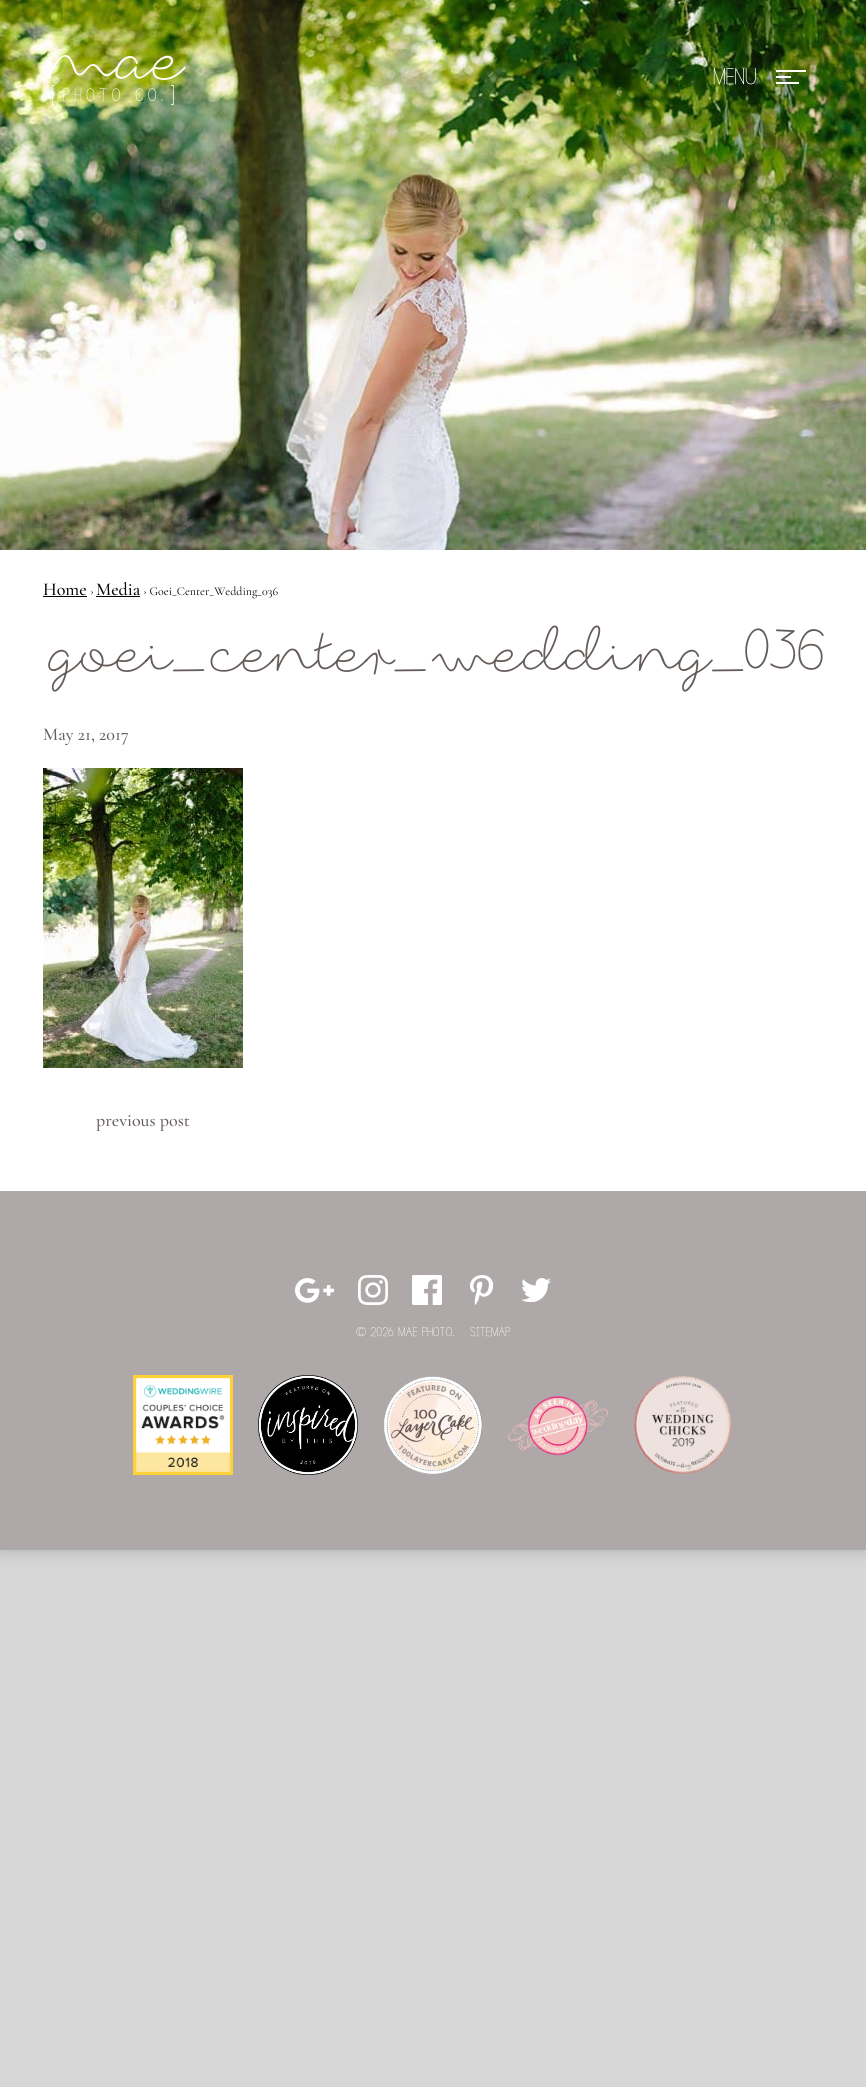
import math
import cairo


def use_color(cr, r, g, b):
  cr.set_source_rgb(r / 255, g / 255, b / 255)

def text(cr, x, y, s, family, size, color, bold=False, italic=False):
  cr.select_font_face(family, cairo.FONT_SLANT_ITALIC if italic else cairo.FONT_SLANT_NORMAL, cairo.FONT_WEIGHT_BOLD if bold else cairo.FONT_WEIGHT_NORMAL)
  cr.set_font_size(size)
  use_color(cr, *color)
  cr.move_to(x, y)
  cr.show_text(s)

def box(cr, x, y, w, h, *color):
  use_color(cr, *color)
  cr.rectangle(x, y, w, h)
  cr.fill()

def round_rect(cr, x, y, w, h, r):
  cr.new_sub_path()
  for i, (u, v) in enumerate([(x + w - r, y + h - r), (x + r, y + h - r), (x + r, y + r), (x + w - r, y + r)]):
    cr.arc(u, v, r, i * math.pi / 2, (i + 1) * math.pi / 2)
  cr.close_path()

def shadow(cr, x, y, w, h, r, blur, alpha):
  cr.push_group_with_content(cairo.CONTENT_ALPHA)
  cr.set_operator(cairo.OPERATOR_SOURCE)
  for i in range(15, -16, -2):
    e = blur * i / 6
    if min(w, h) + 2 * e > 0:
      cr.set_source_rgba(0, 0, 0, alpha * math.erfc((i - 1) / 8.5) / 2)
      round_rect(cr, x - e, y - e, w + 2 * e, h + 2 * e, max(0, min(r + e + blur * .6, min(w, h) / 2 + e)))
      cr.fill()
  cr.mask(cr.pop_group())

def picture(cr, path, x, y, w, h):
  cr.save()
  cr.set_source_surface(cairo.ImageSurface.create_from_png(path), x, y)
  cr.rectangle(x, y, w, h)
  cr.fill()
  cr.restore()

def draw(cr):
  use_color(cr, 215, 215, 215)
  cr.paint()
  use_color(cr, 0, 0, 0)
  shadow(cr, 0, 0, 866, 1550, 0, 9, 0.2)
  box(cr, 0, 550, 866, 641, 255, 255, 255)
  picture(cr, "img_01.png", 0, 0, 866, 550)
  picture(cr, "img_02.png", 43, 55, 143, 50)
  box(cr, 776, 70, 30, 2, 255, 255, 255)
  box(cr, 776, 76, 15, 2, 255, 255, 255)
  box(cr, 776, 82, 23, 2, 255, 255, 255)
  box(cr, 43, 596, 44, 1, 0, 0, 0)
  box(cr, 96, 596, 44, 1, 0, 0, 0)
  picture(cr, "img_03.png", 43, 768, 200, 300)
  box(cr, 0, 1191, 866, 359, 174, 168, 168)
  picture(cr, "img_04.png", 295, 1278, 39, 25)
  picture(cr, "img_05.png", 358, 1275, 30, 30)
  picture(cr, "img_06.png", 412, 1275, 30, 30)
  picture(cr, "img_07.png", 470, 1275, 23, 30)
  picture(cr, "img_08.png", 521, 1278, 30, 24)
  picture(cr, "img_09.png", 133, 1375, 100, 100)
  picture(cr, "img_10.png", 258, 1375, 100, 100)
  picture(cr, "img_11.png", 383, 1376, 100, 99)
  picture(cr, "img_12.png", 508, 1396, 100, 60)
  picture(cr, "img_13.png", 634, 1376, 98, 98)
  text(cr, 713, 84, "MENU", "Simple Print", 32, (255, 255, 255))
  text(cr, 43, 595, "Home", "Cormorant Garamond Medium", 18, (0, 0, 0))
  text(cr, 90, 595, "›", "Cormorant Garamond", 12, (0, 0, 0))
  text(cr, 96, 595, "Media", "Cormorant Garamond Medium", 18, (0, 0, 0))
  text(cr, 143, 595, "› Goei_Center_Wedding_036", "Cormorant Garamond", 12, (0, 0, 0))
  text(cr, 43, 669, "goei_center_wedding_036", "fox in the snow", 60, (100, 92, 89))
  text(cr, 43, 740, "May 21, 2017", "Cormorant Garamond Medium", 18, (100, 92, 89))
  text(cr, 96, 1126, "previous post", "Cormorant Garamond Medium", 18, (100, 92, 89))
  text(cr, 356, 1336, "© 2026 MAE PHOTO.", "Simple Print", 18, (255, 255, 255))
  text(cr, 470, 1336, "SITEMAP", "Simple Print", 18, (255, 255, 255))


surface = cairo.ImageSurface(cairo.FORMAT_RGB24, 866, 2087)
cr = cairo.Context(surface)
options = cairo.FontOptions()
options.set_hint_metrics(cairo.HINT_METRICS_OFF)
options.set_hint_style(cairo.HINT_STYLE_NONE)
cr.set_font_options(options)
cr.set_miter_limit(4)
draw(cr)
surface.write_to_png("out.png")
